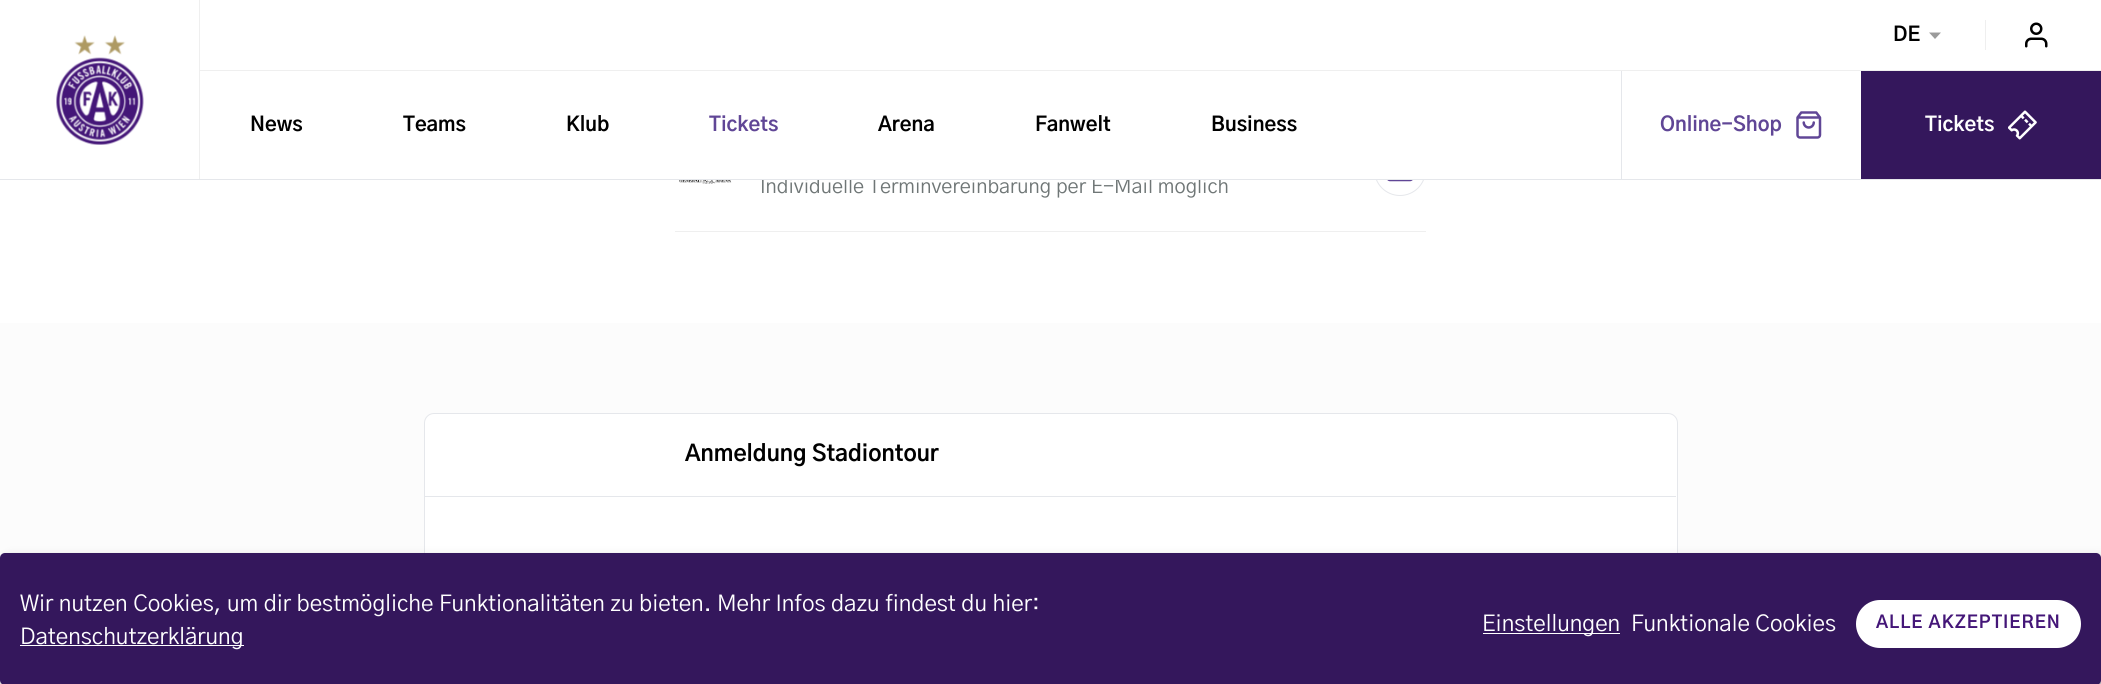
import math
import cairo


def use_color(cr, r, g, b):
  cr.set_source_rgb(r / 255, g / 255, b / 255)

def text(cr, x, y, s, family, size, color, bold=False, italic=False):
  cr.select_font_face(family, cairo.FONT_SLANT_ITALIC if italic else cairo.FONT_SLANT_NORMAL, cairo.FONT_WEIGHT_BOLD if bold else cairo.FONT_WEIGHT_NORMAL)
  cr.set_font_size(size)
  use_color(cr, *color)
  cr.move_to(x, y)
  cr.show_text(s)

def spaced_text(cr, x, y, s, letter, word):
  cr.move_to(x, y)
  for ch in s:
    cr.show_text(ch)
    cr.rel_move_to(letter + word * (ch == ' '), 0)

def box(cr, x, y, w, h, *color):
  use_color(cr, *color)
  cr.rectangle(x, y, w, h)
  cr.fill()

def round_rect(cr, x, y, w, h, r):
  cr.new_sub_path()
  for i, (u, v) in enumerate([(x + w - r, y + h - r), (x + r, y + h - r), (x + r, y + r), (x + w - r, y + r)]):
    cr.arc(u, v, r, i * math.pi / 2, (i + 1) * math.pi / 2)
  cr.close_path()

def shadow(cr, x, y, w, h, r, blur, alpha):
  cr.push_group_with_content(cairo.CONTENT_ALPHA)
  cr.set_operator(cairo.OPERATOR_SOURCE)
  for i in range(15, -16, -2):
    e = blur * i / 6
    if min(w, h) + 2 * e > 0:
      cr.set_source_rgba(0, 0, 0, alpha * math.erfc((i - 1) / 8.5) / 2)
      round_rect(cr, x - e, y - e, w + 2 * e, h + 2 * e, max(0, min(r + e + blur * .6, min(w, h) / 2 + e)))
      cr.fill()
  cr.mask(cr.pop_group())

def picture(cr, path, x, y, w, h):
  cr.save()
  cr.set_source_surface(cairo.ImageSurface.create_from_png(path), x, y)
  cr.rectangle(x, y, w, h)
  cr.fill()
  cr.restore()

def draw(cr):
  use_color(cr, 255, 255, 255)
  cr.paint()
  box(cr, 199, 0, 1, 179, 239, 239, 239)
  picture(cr, "img_01.png", 56, 35, 88, 110)
  box(cr, 200, 70, 1901, 1, 239, 239, 239)
  use_color(cr, 155, 155, 155)
  cr.set_fill_rule(cairo.FILL_RULE_EVEN_ODD)
  cr.new_path()
  cr.move_to(1929, 32.5)
  cr.line_to(1935, 39)
  cr.line_to(1941, 32.5)
  cr.close_path()
  cr.fill()
  box(cr, 1985, 20, 1, 30, 239, 239, 239)
  picture(cr, "img_02.png", 2025, 22, 23, 26)
  box(cr, 1621, 71, 1, 108, 229, 231, 235)
  picture(cr, "img_03.png", 1796, 111, 26, 28)
  box(cr, 1861, 71, 240, 108, 52, 23, 92)
  picture(cr, "img_04.png", 2008, 110, 29, 30)
  box(cr, 675, 231, 751, 1, 239, 239, 239)
  picture(cr, "img_05.png", 679, 180, 53, 4)
  cr.arc(1400, 170, 25.5, 0, 2 * math.pi)
  use_color(cr, 229, 231, 235)
  cr.set_line_width(1)
  cr.stroke()
  picture(cr, "img_06.png", 1387, 180, 26, 2)
  box(cr, 0, 323, 2101, 361, 252, 252, 252)
  use_color(cr, 255, 255, 255)
  round_rect(cr, 424.5, 413.5, 1253, 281, 9.5)
  cr.fill_preserve()
  use_color(cr, 229, 231, 235)
  cr.stroke()
  box(cr, 425, 496, 1251, 1, 229, 231, 235)
  use_color(cr, 0, 0, 0)
  shadow(cr, 6, 559, 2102, 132, 5, 6, 0.19)
  shadow(cr, 0, 558, 2101, 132, 5, 4, 0.2)
  use_color(cr, 52, 23, 92)
  round_rect(cr, 0, 553, 2101, 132, 5)
  cr.fill()
  box(cr, 20, 645, 224, 1, 255, 255, 255)
  box(cr, 1483, 633, 137, 1, 255, 255, 255)
  round_rect(cr, 1856, 600, 225, 48, 24)
  cr.fill()
  text(cr, 1893, 41, "DE", "Gothic A1", 20, (0, 0, 0), bold=True)
  text(cr, 250, 131, "News", "Gothic A1", 20, (0, 0, 0), bold=True)
  text(cr, 403, 131, "Teams", "Gothic A1", 20, (0, 0, 0), bold=True)
  text(cr, 566, 131, "Klub", "Gothic A1", 20, (0, 0, 0), bold=True)
  text(cr, 709, 131, "Tickets", "Gothic A1", 20, (96, 70, 150), bold=True)
  text(cr, 878, 131, "Arena", "Gothic A1", 20, (0, 0, 0), bold=True)
  text(cr, 1035, 131, "Fanwelt", "Gothic A1", 20, (0, 0, 0), bold=True)
  text(cr, 1211, 131, "Business", "Gothic A1", 20, (0, 0, 0), bold=True)
  text(cr, 1660, 131, "Online-Shop", "Gothic A1", 20, (96, 70, 150), bold=True)
  text(cr, 1925, 131, "Tickets", "Gothic A1", 20, (255, 255, 255), bold=True)
  text(cr, 760, 193, "Individuelle Terminvereinbarung per E-Mail möglich", "Gothic A1", 20, (111, 118, 118))
  box(cr, 0, 179, 2101, 1, 229, 231, 235)
  box(cr, 761, 144, 665, 35, 255, 255, 255)
  text(cr, 685, 461, "Anmeldung Stadiontour", "Gothic A1", 22.5, (0, 0, 0), bold=True)
  text(cr, 20, 611, "Wir nutzen Cookies, um dir bestmögliche Funktionalitäten zu bieten. Mehr Infos dazu findest du hier:", "Gothic A1", 22.5, (255, 255, 255))
  text(cr, 20, 644, "Datenschutzerklärung", "Gothic A1", 22.5, (255, 255, 255))
  text(cr, 1482, 631, "Einstellungen", "Gothic A1", 22.5, (255, 255, 255))
  text(cr, 1631, 631, "Funktionale Cookies", "Gothic A1", 22.5, (255, 255, 255))
  cr.select_font_face("Gothic A1", cairo.FONT_SLANT_NORMAL, cairo.FONT_WEIGHT_BOLD)
  cr.set_font_size(17.5)
  use_color(cr, 68, 22, 120)
  spaced_text(cr, 1876, 628, "ALLE AKZEPTIEREN", 1, 0)


surface = cairo.ImageSurface(cairo.FORMAT_RGB24, 2101, 684)
cr = cairo.Context(surface)
options = cairo.FontOptions()
options.set_hint_metrics(cairo.HINT_METRICS_OFF)
options.set_hint_style(cairo.HINT_STYLE_NONE)
cr.set_font_options(options)
cr.set_miter_limit(4)
draw(cr)
surface.write_to_png("out.png")
